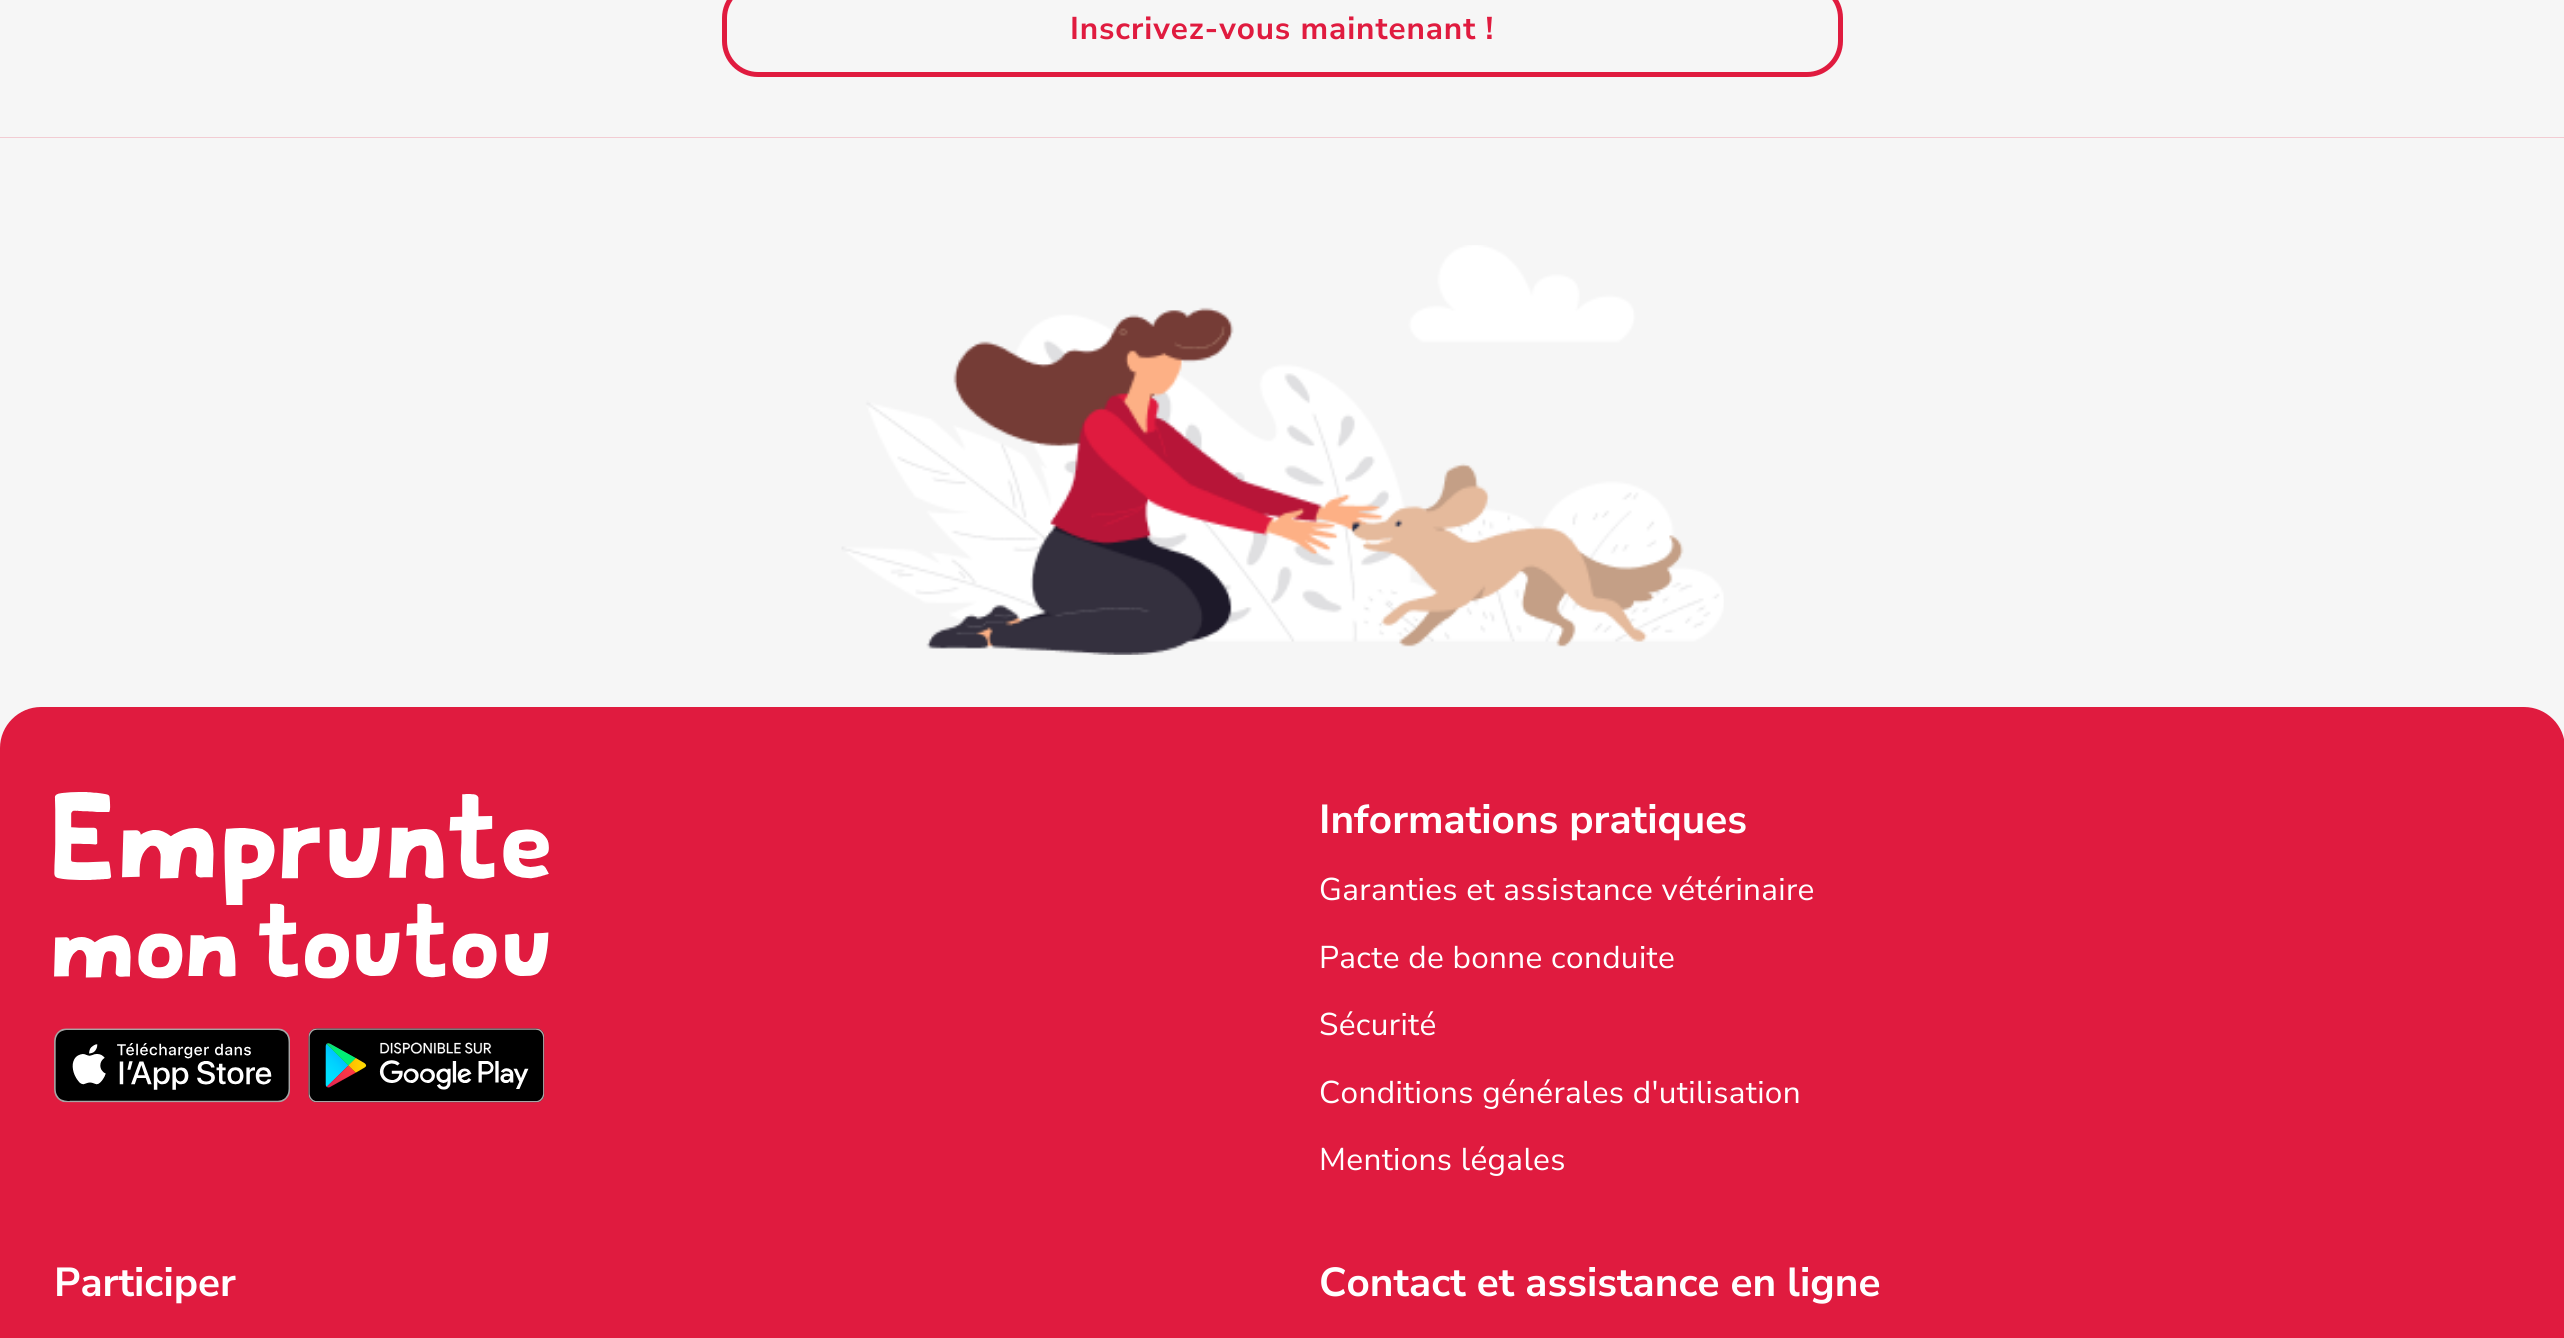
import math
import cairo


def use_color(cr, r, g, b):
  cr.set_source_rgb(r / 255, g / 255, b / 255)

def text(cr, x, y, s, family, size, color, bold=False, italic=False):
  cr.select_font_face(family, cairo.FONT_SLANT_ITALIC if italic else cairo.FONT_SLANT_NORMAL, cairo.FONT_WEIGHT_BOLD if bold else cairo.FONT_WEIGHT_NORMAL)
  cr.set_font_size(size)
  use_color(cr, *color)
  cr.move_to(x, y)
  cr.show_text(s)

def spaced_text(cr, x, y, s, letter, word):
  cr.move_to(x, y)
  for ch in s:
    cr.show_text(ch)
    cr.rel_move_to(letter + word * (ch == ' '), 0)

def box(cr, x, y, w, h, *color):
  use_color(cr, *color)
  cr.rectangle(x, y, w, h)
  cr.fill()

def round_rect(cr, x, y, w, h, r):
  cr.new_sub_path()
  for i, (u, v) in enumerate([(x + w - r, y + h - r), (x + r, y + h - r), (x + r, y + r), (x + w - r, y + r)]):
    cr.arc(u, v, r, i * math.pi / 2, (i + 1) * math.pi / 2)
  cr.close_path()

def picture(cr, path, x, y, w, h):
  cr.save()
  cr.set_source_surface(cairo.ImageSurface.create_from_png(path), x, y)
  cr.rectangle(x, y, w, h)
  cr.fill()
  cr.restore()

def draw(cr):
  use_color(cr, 246, 246, 246)
  cr.paint()
  box(cr, 0, 137, 2564, 1, 242, 204, 211)
  round_rect(cr, 724.5, -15.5, 1116, 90, 33.5)
  use_color(cr, 224, 27, 63)
  cr.set_line_width(5)
  cr.stroke()
  picture(cr, "img_01.png", 841, 245, 883, 410)
  cr.new_path()
  cr.move_to(41, 707)
  cr.line_to(2524, 707)
  cr.curve_to(2546.5, 707, 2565, 725.5, 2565, 748)
  cr.line_to(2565, 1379)
  cr.line_to(0, 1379)
  cr.line_to(0, 748)
  cr.curve_to(0, 725.5, 18.5, 707, 41, 707)
  cr.close_path()
  cr.fill()
  picture(cr, "img_02.png", 54, 792, 495, 187)
  picture(cr, "img_03.png", 54, 1028, 236, 75)
  picture(cr, "img_04.png", 308, 1028, 237, 75)
  cr.select_font_face("Nunito Sans", cairo.FONT_SLANT_NORMAL, cairo.FONT_WEIGHT_BOLD)
  cr.set_font_size(31.5)
  spaced_text(cr, 1070, 39, "Inscrivez-vous maintenant !", 0.9, 0)
  text(cr, 1319, 833, "Informations pratiques", "Nunito Sans", 40.5, (255, 255, 255), bold=True)
  cr.select_font_face("Nunito Sans")
  cr.set_font_size(31.5)
  spaced_text(cr, 1319, 900, "Garanties et assistance vétérinaire", 0.35, 0)
  spaced_text(cr, 1319, 968, "Pacte de bonne conduite", 0.35, 0)
  spaced_text(cr, 1319, 1035, "Sécurité", 0.35, 0)
  spaced_text(cr, 1319, 1103, "Conditions générales d'utilisation", 0.35, 0)
  spaced_text(cr, 1319, 1170, "Mentions légales", 0.35, 0)
  text(cr, 54, 1296, "Participer", "Nunito Sans", 40.5, (255, 255, 255), bold=True)
  text(cr, 1319, 1296, "Contact et assistance en ligne", "Nunito Sans", 40.5, (255, 255, 255), bold=True)


surface = cairo.ImageSurface(cairo.FORMAT_RGB24, 2564, 1338)
cr = cairo.Context(surface)
options = cairo.FontOptions()
options.set_hint_metrics(cairo.HINT_METRICS_OFF)
options.set_hint_style(cairo.HINT_STYLE_NONE)
cr.set_font_options(options)
cr.set_miter_limit(4)
draw(cr)
surface.write_to_png("out.png")
